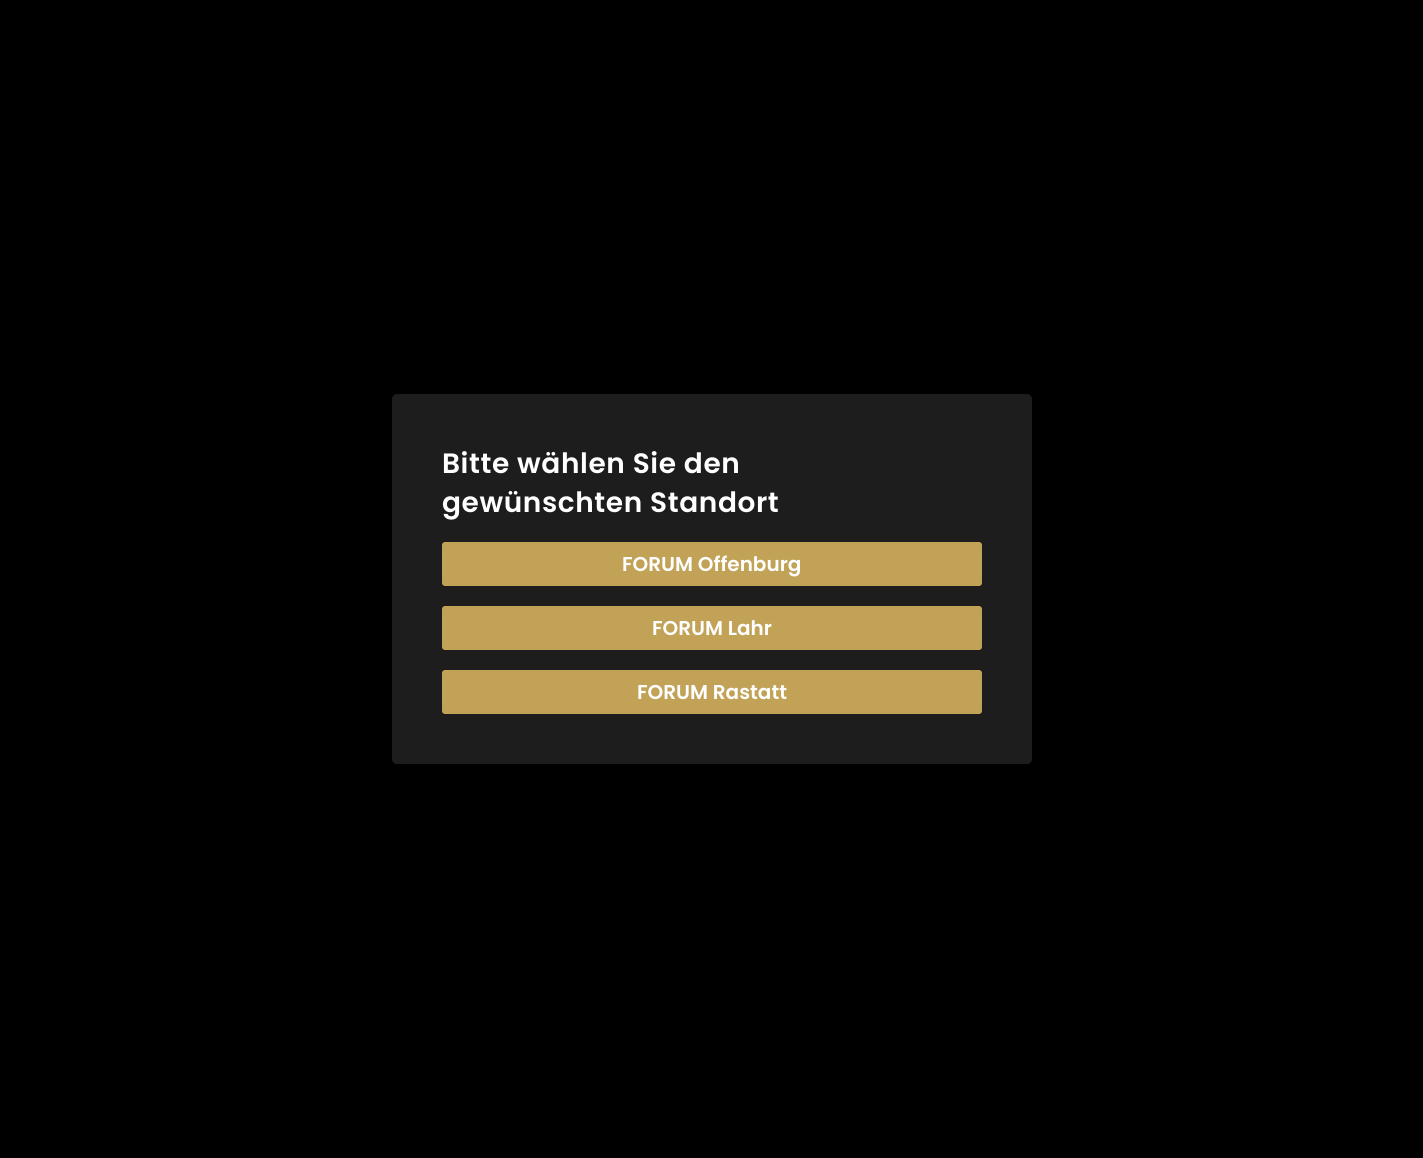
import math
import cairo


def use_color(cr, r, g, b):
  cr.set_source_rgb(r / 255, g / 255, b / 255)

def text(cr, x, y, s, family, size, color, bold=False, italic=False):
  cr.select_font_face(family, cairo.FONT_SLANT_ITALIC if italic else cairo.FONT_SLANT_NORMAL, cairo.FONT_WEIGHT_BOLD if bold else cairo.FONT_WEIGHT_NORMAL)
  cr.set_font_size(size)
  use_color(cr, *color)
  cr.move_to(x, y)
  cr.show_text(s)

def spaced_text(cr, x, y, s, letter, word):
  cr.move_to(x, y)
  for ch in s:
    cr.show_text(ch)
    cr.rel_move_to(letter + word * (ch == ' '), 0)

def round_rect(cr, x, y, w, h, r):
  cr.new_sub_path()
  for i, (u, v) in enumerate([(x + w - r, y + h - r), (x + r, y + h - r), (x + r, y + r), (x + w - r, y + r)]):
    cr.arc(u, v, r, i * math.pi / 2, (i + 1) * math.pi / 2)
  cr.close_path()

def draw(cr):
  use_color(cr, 0, 0, 0)
  cr.paint()
  use_color(cr, 29, 29, 29)
  round_rect(cr, 392, 394, 640, 370, 5)
  cr.fill()
  use_color(cr, 193, 162, 87)
  round_rect(cr, 442, 542, 540, 44, 3)
  cr.fill()
  round_rect(cr, 442, 606, 540, 44, 3)
  cr.fill()
  round_rect(cr, 442, 670, 540, 44, 3)
  cr.fill()
  cr.select_font_face("Poppins SemiBold")
  cr.set_font_size(28)
  use_color(cr, 255, 255, 255)
  spaced_text(cr, 442, 473, "Bitte wählen Sie den", 0.6, 0)
  spaced_text(cr, 442, 512, "gewünschten Standort", 0.6, 0)
  text(cr, 622, 571, "FORUM Offenburg", "Poppins SemiBold", 20, (255, 255, 255))
  text(cr, 652, 635, "FORUM Lahr", "Poppins SemiBold", 20, (255, 255, 255))
  text(cr, 637, 699, "FORUM Rastatt", "Poppins SemiBold", 20, (255, 255, 255))


surface = cairo.ImageSurface(cairo.FORMAT_RGB24, 1423, 1158)
cr = cairo.Context(surface)
options = cairo.FontOptions()
options.set_hint_metrics(cairo.HINT_METRICS_OFF)
options.set_hint_style(cairo.HINT_STYLE_NONE)
cr.set_font_options(options)
cr.set_miter_limit(4)
draw(cr)
surface.write_to_png("out.png")
